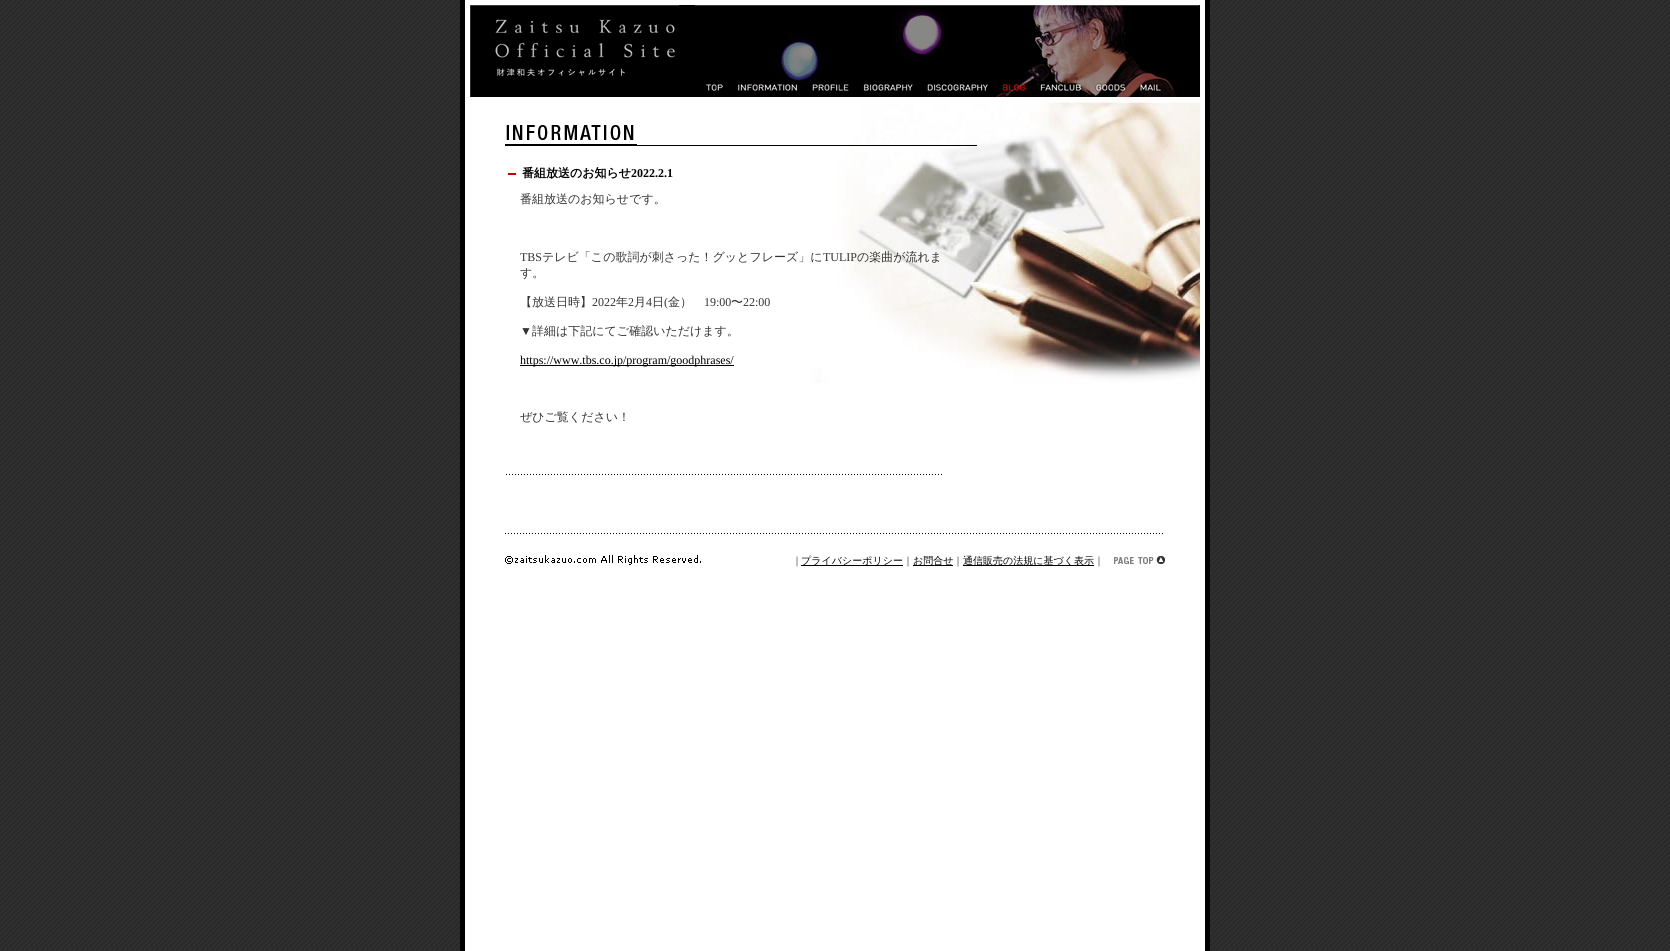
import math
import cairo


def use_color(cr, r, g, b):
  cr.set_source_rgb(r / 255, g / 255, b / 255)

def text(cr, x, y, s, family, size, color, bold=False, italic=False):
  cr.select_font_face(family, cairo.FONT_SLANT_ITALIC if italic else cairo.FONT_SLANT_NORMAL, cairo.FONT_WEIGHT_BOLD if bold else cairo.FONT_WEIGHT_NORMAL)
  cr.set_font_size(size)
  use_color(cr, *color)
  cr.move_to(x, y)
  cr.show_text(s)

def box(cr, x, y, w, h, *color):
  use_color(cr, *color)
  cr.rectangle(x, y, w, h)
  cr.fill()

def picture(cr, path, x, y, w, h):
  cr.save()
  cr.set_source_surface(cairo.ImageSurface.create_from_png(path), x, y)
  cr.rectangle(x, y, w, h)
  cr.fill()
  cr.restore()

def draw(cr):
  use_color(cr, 255, 255, 255)
  cr.paint()
  picture(cr, "img_01.png", 0, 0, 1670, 951)
  box(cr, 460, 0, 5, 951, 0, 0, 0)
  box(cr, 465, 0, 5, 951, 255, 255, 255)
  picture(cr, "img_02.png", 470, 0, 730, 951)
  picture(cr, "img_03.png", 470, 5, 209, 92)
  box(cr, 679, 5, 16, 92, 0, 0, 0)
  picture(cr, "img_04.png", 695, 5, 471, 72)
  picture(cr, "img_05.png", 1166, 5, 34, 92)
  picture(cr, "img_06.png", 695, 77, 35, 20)
  picture(cr, "img_07.png", 730, 77, 74, 20)
  picture(cr, "img_08.png", 804, 77, 52, 20)
  picture(cr, "img_09.png", 856, 77, 64, 20)
  picture(cr, "img_10.png", 920, 77, 75, 20)
  picture(cr, "img_11.png", 995, 77, 37, 20)
  picture(cr, "img_12.png", 1032, 77, 56, 20)
  picture(cr, "img_13.png", 1088, 77, 45, 20)
  picture(cr, "img_14.png", 1133, 77, 33, 20)
  picture(cr, "img_15.png", 505, 144, 472, 2)
  picture(cr, "img_16.png", 506, 125, 128, 15)
  picture(cr, "img_17.png", 506, 474, 436, 1)
  box(cr, 508, 173, 8, 2, 189, 0, 0)
  box(cr, 520, 365, 214, 1, 0, 0, 0)
  picture(cr, "img_18.png", 505, 533, 658, 1)
  picture(cr, "img_19.png", 505, 555, 196, 10)
  box(cr, 801, 565, 102, 1, 0, 0, 0)
  box(cr, 913, 565, 40, 1, 0, 0, 0)
  box(cr, 963, 565, 131, 1, 0, 0, 0)
  picture(cr, "img_20.png", 1114, 556, 51, 8)
  box(cr, 1200, 0, 5, 951, 255, 255, 255)
  box(cr, 1205, 0, 5, 951, 0, 0, 0)
  text(cr, 522, 177, "番組放送のお知らせ", "WenQuanYi Zen Hei", 12, (0, 0, 0), bold=True)
  text(cr, 631, 177, "2022.2.1", "Liberation Serif", 12, (0, 0, 0), bold=True)
  text(cr, 520, 203, "番組放送のお知らせです。", "WenQuanYi Zen Hei Medium", 12, (51, 51, 51))
  text(cr, 520, 261, "TBS", "Liberation Serif", 12, (51, 51, 51))
  text(cr, 542, 261, "テレビ「この歌詞が刺さった！グッとフレーズ」に", "WenQuanYi Zen Hei Medium", 12, (51, 51, 51))
  text(cr, 823, 261, "TULIP", "Liberation Serif", 12, (51, 51, 51))
  text(cr, 857, 261, "の楽曲が流れま", "WenQuanYi Zen Hei Medium", 12, (51, 51, 51))
  text(cr, 520, 277, "す。", "WenQuanYi Zen Hei Medium", 12, (51, 51, 51))
  text(cr, 520, 306, "【放送日時】", "WenQuanYi Zen Hei Medium", 12, (51, 51, 51))
  text(cr, 592, 306, "2022", "Liberation Serif", 12, (51, 51, 51))
  text(cr, 616, 306, "年", "WenQuanYi Zen Hei Medium", 12, (51, 51, 51))
  text(cr, 628, 306, "2", "Liberation Serif", 12, (51, 51, 51))
  text(cr, 634, 306, "月", "WenQuanYi Zen Hei Medium", 12, (51, 51, 51))
  text(cr, 646, 306, "4", "Liberation Serif", 12, (51, 51, 51))
  text(cr, 652, 306, "日", "WenQuanYi Zen Hei Medium", 12, (51, 51, 51))
  text(cr, 664, 306, "(", "Liberation Serif", 12, (51, 51, 51))
  text(cr, 668, 306, "金）", "WenQuanYi Zen Hei Medium", 12, (51, 51, 51))
  text(cr, 704, 306, "19:00", "Liberation Serif", 12, (51, 51, 51))
  text(cr, 731, 306, "〜", "WenQuanYi Zen Hei Medium", 12, (51, 51, 51))
  text(cr, 743, 306, "22:00", "Liberation Serif", 12, (51, 51, 51))
  text(cr, 520, 335, "▼", "Liberation Serif", 12, (51, 51, 51))
  text(cr, 532, 335, "詳細は下記にてご確認いただけます。", "WenQuanYi Zen Hei Medium", 12, (51, 51, 51))
  text(cr, 520, 364, "https://www.tbs.co.jp/program/goodphrases/", "Liberation Serif", 12, (0, 0, 0))
  text(cr, 520, 421, "ぜひご覧ください！", "WenQuanYi Zen Hei Medium", 12, (51, 51, 51))
  text(cr, 792, 564, "｜", "WenQuanYi Zen Hei Medium", 10, (51, 51, 51))
  text(cr, 801, 564, "プライバシーポリシー", "WenQuanYi Zen Hei Medium", 10, (0, 0, 0))
  text(cr, 903, 564, "｜", "WenQuanYi Zen Hei Medium", 10, (51, 51, 51))
  text(cr, 913, 564, "お問合せ", "WenQuanYi Zen Hei Medium", 10, (0, 0, 0))
  text(cr, 953, 564, "｜", "WenQuanYi Zen Hei Medium", 10, (51, 51, 51))
  text(cr, 963, 564, "通信販売の法規に基づく表示", "WenQuanYi Zen Hei Medium", 10, (0, 0, 0))
  text(cr, 1094, 564, "｜", "WenQuanYi Zen Hei Medium", 10, (51, 51, 51))


surface = cairo.ImageSurface(cairo.FORMAT_RGB24, 1670, 951)
cr = cairo.Context(surface)
options = cairo.FontOptions()
options.set_hint_metrics(cairo.HINT_METRICS_OFF)
options.set_hint_style(cairo.HINT_STYLE_NONE)
cr.set_font_options(options)
cr.set_miter_limit(4)
draw(cr)
surface.write_to_png("out.png")
